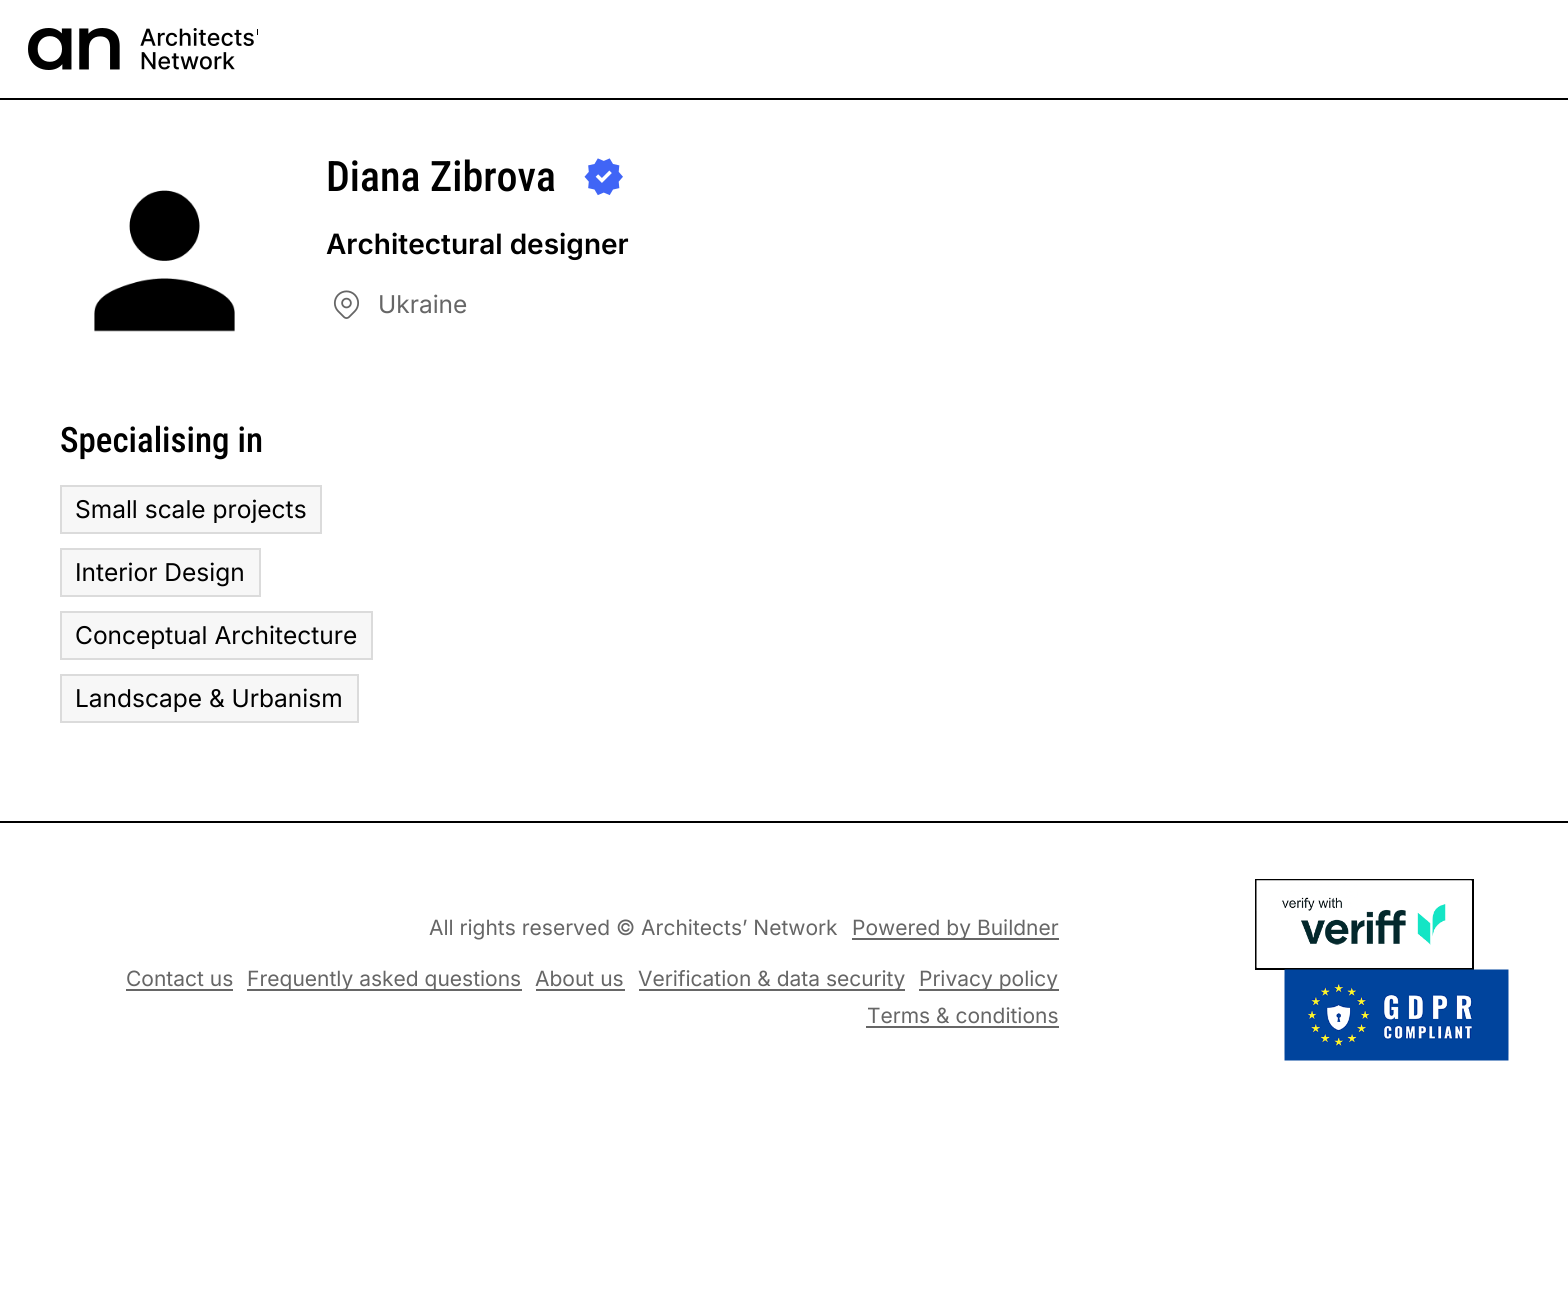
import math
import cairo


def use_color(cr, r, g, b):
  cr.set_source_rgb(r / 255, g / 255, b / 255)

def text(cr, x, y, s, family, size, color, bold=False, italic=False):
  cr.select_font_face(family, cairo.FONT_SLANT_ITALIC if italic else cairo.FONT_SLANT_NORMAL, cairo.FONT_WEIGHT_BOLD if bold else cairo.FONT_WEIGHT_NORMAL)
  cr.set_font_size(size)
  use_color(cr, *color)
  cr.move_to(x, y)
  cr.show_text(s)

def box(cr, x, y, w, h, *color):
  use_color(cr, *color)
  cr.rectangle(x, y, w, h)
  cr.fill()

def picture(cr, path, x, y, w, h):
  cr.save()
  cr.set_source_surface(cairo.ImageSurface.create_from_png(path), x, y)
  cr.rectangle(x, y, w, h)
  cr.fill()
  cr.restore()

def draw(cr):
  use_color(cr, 255, 255, 255)
  cr.paint()
  box(cr, 0, 98, 1568, 2, 0, 0, 0)
  picture(cr, "img_01.png", 28, 28, 230, 42)
  picture(cr, "img_02.png", 94, 190, 141, 142)
  picture(cr, "img_03.png", 584, 158, 39, 38)
  picture(cr, "img_04.png", 333, 290, 26, 29)
  use_color(cr, 247, 247, 247)
  cr.rectangle(61, 486, 260, 47)
  cr.fill_preserve()
  use_color(cr, 219, 219, 219)
  cr.stroke()
  use_color(cr, 247, 247, 247)
  cr.rectangle(61, 549, 199, 47)
  cr.fill_preserve()
  use_color(cr, 219, 219, 219)
  cr.stroke()
  use_color(cr, 247, 247, 247)
  cr.rectangle(61, 612, 311, 47)
  cr.fill_preserve()
  use_color(cr, 219, 219, 219)
  cr.stroke()
  use_color(cr, 247, 247, 247)
  cr.rectangle(61, 675, 297, 47)
  cr.fill_preserve()
  use_color(cr, 219, 219, 219)
  cr.stroke()
  box(cr, 0, 821, 1568, 2, 0, 0, 0)
  box(cr, 852, 938, 207, 2, 102, 102, 102)
  box(cr, 126, 989, 107, 2, 102, 102, 102)
  box(cr, 247, 989, 275, 2, 102, 102, 102)
  box(cr, 536, 989, 89, 2, 102, 102, 102)
  box(cr, 639, 989, 266, 2, 102, 102, 102)
  box(cr, 919, 989, 140, 2, 102, 102, 102)
  box(cr, 866, 1026, 193, 2, 102, 102, 102)
  cr.rectangle(1256, 880, 217, 89)
  use_color(cr, 0, 0, 0)
  cr.stroke()
  picture(cr, "img_05.png", 1256, 880, 216, 88)
  picture(cr, "img_06.png", 1284, 969, 225, 92)
  text(cr, 326, 191, "Diana Zibrova", "Roboto Condensed Medium", 42, (0, 0, 0))
  text(cr, 326, 254, "Architectural designer", "Inter SemiBold", 28, (0, 0, 0))
  text(cr, 378, 313, "Ukraine", "Inter", 24.5, (102, 102, 102))
  text(cr, 60, 452, "Specialising in", "Roboto Condensed Medium", 35, (0, 0, 0))
  text(cr, 75, 518, "Small scale projects", "Inter", 24.5, (0, 0, 0))
  text(cr, 75, 581, "Interior Design", "Inter", 24.5, (0, 0, 0))
  text(cr, 75, 644, "Conceptual Architecture", "Inter", 24.5, (0, 0, 0))
  text(cr, 75, 707, "Landscape & Urbanism", "Inter", 24.5, (0, 0, 0))
  text(cr, 429, 935, "All rights reserved © Architects’ Network", "Inter", 21, (102, 102, 102))
  text(cr, 852, 935, "Powered by Buildner", "Inter", 21, (102, 102, 102))
  text(cr, 126, 986, "Contact us", "Inter", 21, (102, 102, 102))
  text(cr, 247, 986, "Frequently asked questions", "Inter", 21, (102, 102, 102))
  text(cr, 535, 986, "About us", "Inter", 21, (102, 102, 102))
  text(cr, 638, 986, "Verification & data security", "Inter", 21, (102, 102, 102))
  text(cr, 919, 986, "Privacy policy", "Inter", 21, (102, 102, 102))
  text(cr, 867, 1023, "Terms & conditions", "Inter", 21, (102, 102, 102))


surface = cairo.ImageSurface(cairo.FORMAT_RGB24, 1568, 1303)
cr = cairo.Context(surface)
options = cairo.FontOptions()
options.set_hint_metrics(cairo.HINT_METRICS_OFF)
options.set_hint_style(cairo.HINT_STYLE_NONE)
cr.set_font_options(options)
cr.set_miter_limit(4)
draw(cr)
surface.write_to_png("out.png")
